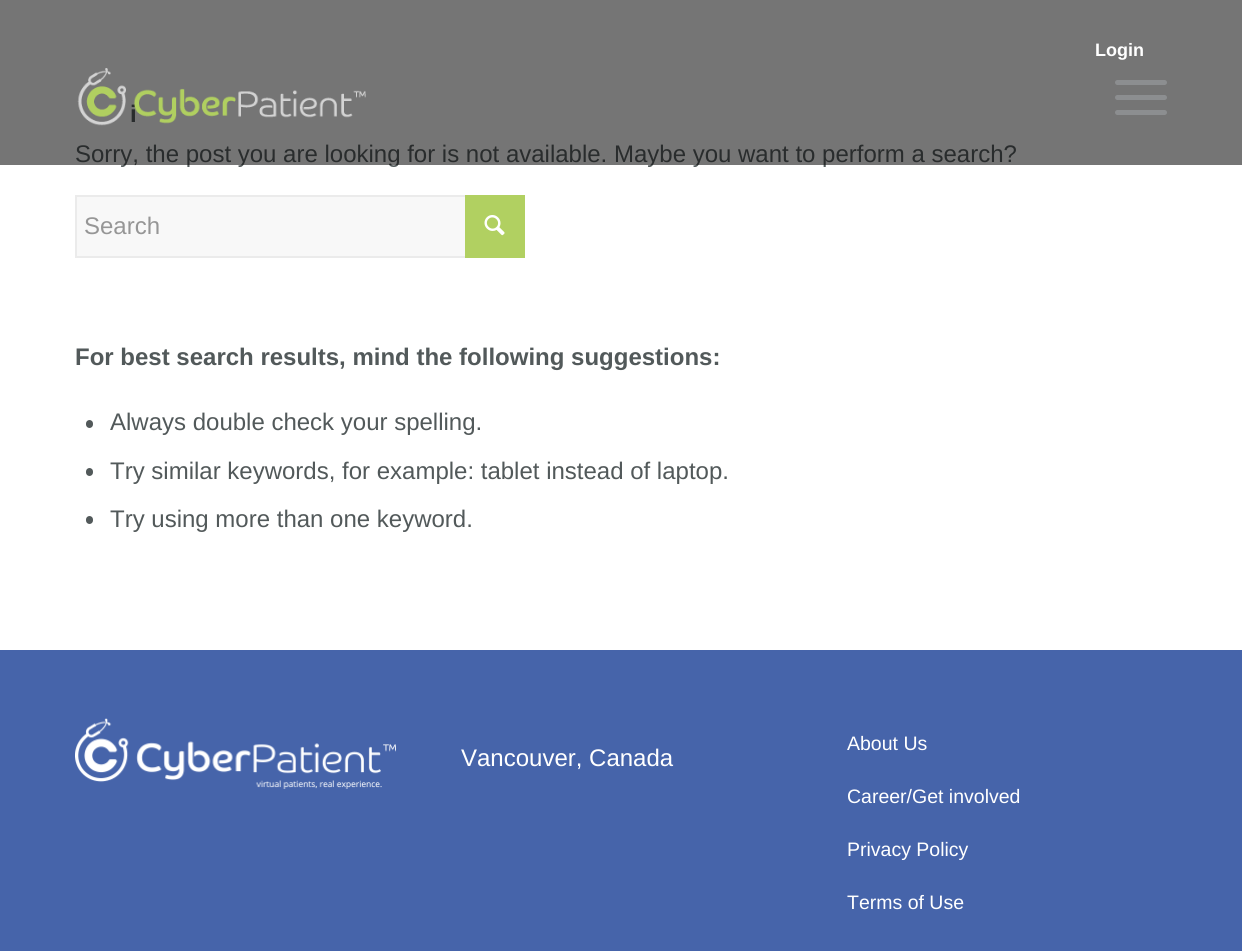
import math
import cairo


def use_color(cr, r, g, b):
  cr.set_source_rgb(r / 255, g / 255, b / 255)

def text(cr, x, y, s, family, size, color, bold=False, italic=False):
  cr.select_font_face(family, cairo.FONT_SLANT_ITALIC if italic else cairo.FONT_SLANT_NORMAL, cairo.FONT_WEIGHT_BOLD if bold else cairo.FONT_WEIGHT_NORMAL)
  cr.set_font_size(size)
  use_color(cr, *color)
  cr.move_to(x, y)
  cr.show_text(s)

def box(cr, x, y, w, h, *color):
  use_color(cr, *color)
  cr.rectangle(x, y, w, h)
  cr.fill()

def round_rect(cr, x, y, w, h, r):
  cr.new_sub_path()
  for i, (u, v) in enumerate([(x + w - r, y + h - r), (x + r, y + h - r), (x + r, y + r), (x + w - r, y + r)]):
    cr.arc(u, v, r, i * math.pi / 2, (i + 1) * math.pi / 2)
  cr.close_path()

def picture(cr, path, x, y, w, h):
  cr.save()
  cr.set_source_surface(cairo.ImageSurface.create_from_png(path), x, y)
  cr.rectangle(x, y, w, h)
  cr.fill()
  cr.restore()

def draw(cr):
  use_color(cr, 255, 255, 255)
  cr.paint()
  box(cr, 77, 197, 388, 59, 248, 248, 248)
  cr.rectangle(76, 196, 448, 61)
  use_color(cr, 235, 235, 235)
  cr.stroke()
  box(cr, 465, 195, 60, 63, 177, 208, 97)
  picture(cr, "img_02.png", 484, 215, 21, 21)
  use_color(cr, 82, 89, 90)
  round_rect(cr, 86, 420, 7, 8, 3.5)
  cr.fill()
  round_rect(cr, 86, 468, 7, 8, 3.5)
  cr.fill()
  round_rect(cr, 86, 516, 7, 8, 3.5)
  cr.fill()
  box(cr, 0, 650, 1242, 301, 70, 100, 170)
  picture(cr, "img_03.png", 75, 718, 321, 71)
  text(cr, 130, 122, "i", "Liberation Sans", 24, (82, 89, 90), bold=True)
  text(cr, 75, 162, "Sorry, the post you are looking for is not available. Maybe you want to perform a search?", "Liberation Sans", 24, (82, 89, 90))
  cr.set_source_rgba(0.039, 0.035, 0.035, 0.56)
  cr.rectangle(0, 0, 1242, 165)
  cr.fill()
  text(cr, 1095, 56, "Login", "Liberation Sans", 18, (255, 255, 255), bold=True)
  use_color(cr, 140, 142, 144)
  round_rect(cr, 1115, 110, 52, 5, 2.5)
  cr.fill()
  round_rect(cr, 1115, 80, 52, 5, 2.5)
  cr.fill()
  round_rect(cr, 1115, 95, 52, 5, 2.5)
  cr.fill()
  picture(cr, "img_01.png", 77, 68, 289, 58)
  text(cr, 84, 234, "Search", "Liberation Sans", 24, (150, 150, 150))
  text(cr, 75, 365, "For best search results, mind the following suggestions:", "Liberation Sans", 24, (82, 89, 90), bold=True)
  text(cr, 110, 430, "Always double check your spelling.", "Liberation Sans", 24, (82, 89, 90))
  text(cr, 110, 479, "Try similar keywords, for example: tablet instead of laptop.", "Liberation Sans", 24, (82, 89, 90))
  text(cr, 110, 527, "Try using more than one keyword.", "Liberation Sans", 24, (82, 89, 90))
  text(cr, 461, 766, "Vancouver, Canada", "Liberation Sans", 24, (255, 255, 255))
  text(cr, 847, 750, "About Us", "Liberation Sans", 19.5, (255, 255, 255))
  text(cr, 847, 803, "Career/Get involved", "Liberation Sans", 19.5, (255, 255, 255))
  text(cr, 847, 856, "Privacy Policy", "Liberation Sans", 19.5, (255, 255, 255))
  text(cr, 847, 909, "Terms of Use", "Liberation Sans", 19.5, (255, 255, 255))


surface = cairo.ImageSurface(cairo.FORMAT_RGB24, 1242, 951)
cr = cairo.Context(surface)
options = cairo.FontOptions()
options.set_hint_metrics(cairo.HINT_METRICS_OFF)
options.set_hint_style(cairo.HINT_STYLE_NONE)
cr.set_font_options(options)
cr.set_miter_limit(4)
draw(cr)
surface.write_to_png("out.png")
